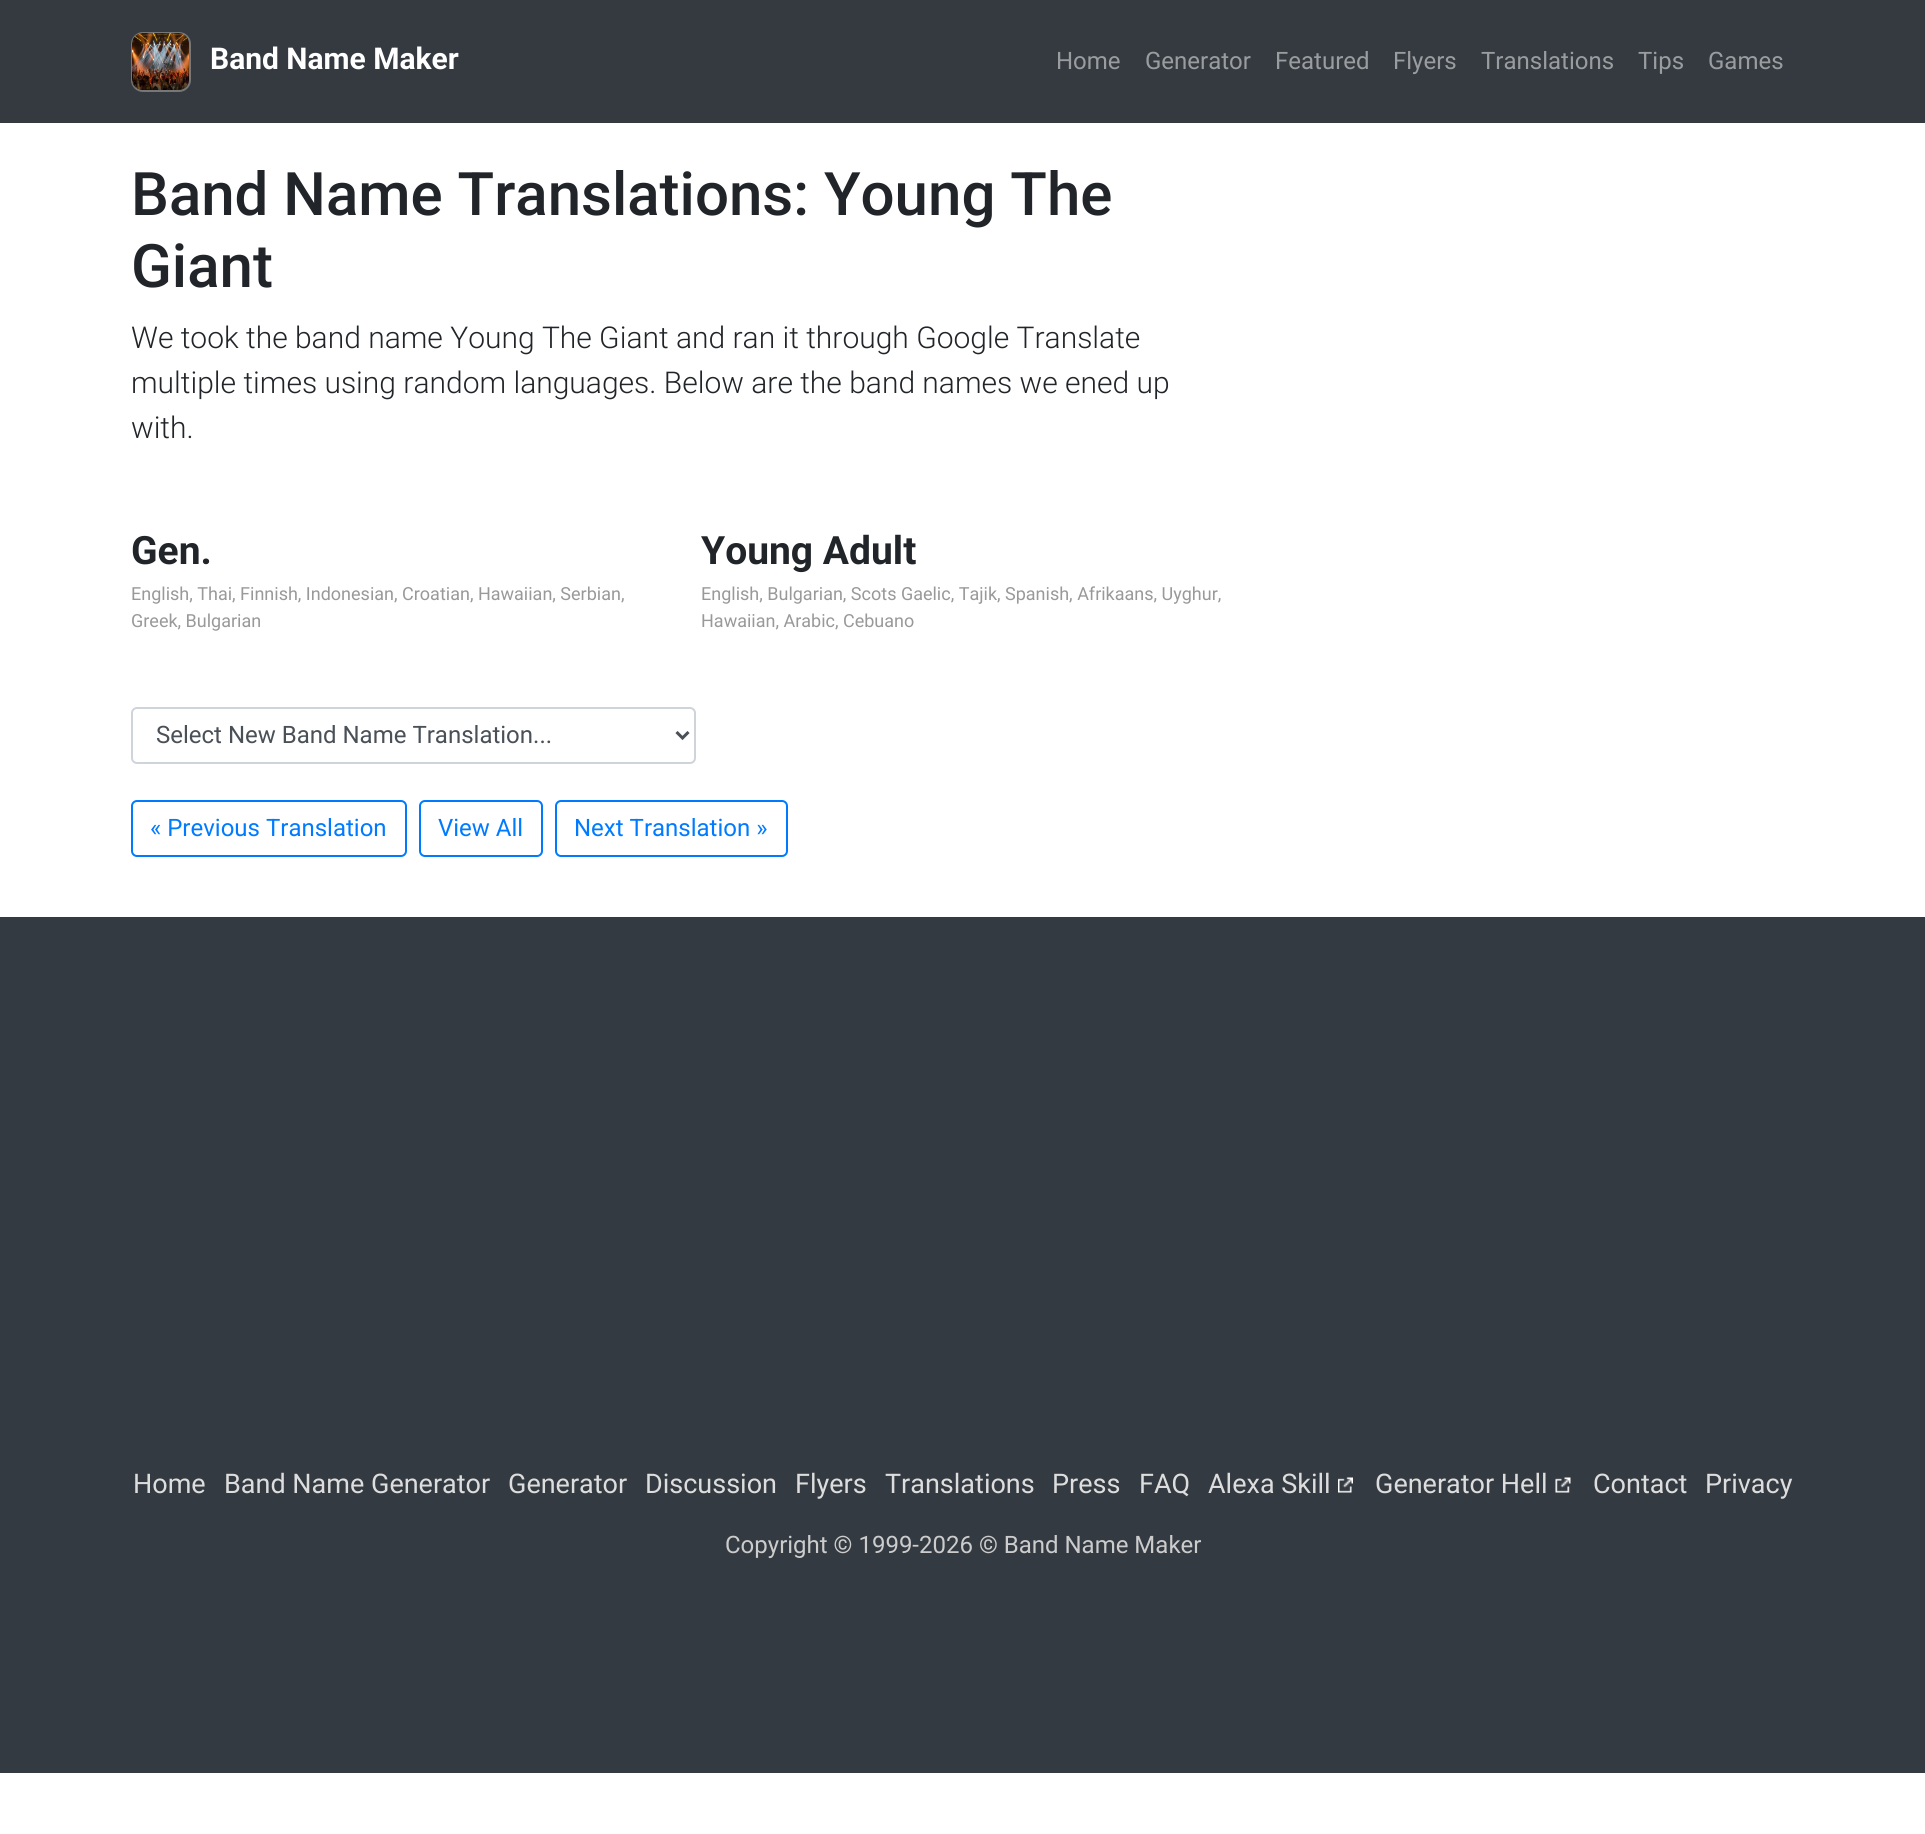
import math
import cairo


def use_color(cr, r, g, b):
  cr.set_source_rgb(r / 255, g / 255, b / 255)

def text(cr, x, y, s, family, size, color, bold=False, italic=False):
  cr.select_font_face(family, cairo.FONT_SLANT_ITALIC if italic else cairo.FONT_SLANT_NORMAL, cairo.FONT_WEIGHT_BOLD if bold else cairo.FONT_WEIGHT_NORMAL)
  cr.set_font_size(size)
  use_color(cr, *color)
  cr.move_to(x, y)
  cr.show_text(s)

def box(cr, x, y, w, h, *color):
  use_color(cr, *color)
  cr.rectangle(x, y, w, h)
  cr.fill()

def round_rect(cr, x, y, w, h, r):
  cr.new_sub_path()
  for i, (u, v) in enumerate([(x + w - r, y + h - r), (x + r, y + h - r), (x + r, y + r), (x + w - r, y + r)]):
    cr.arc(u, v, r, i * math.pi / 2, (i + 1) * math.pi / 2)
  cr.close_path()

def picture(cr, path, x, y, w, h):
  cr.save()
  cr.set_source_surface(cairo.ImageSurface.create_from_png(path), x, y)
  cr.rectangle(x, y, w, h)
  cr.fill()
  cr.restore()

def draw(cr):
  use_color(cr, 255, 255, 255)
  cr.paint()
  box(cr, 0, 0, 1925, 123, 52, 58, 64)
  round_rect(cr, 132, 33, 58, 58, 11)
  use_color(cr, 119, 119, 119)
  cr.stroke()
  picture(cr, "img_01.png", 132, 33, 57, 57)
  round_rect(cr, 132, 708, 563, 55, 5)
  use_color(cr, 206, 212, 218)
  cr.stroke()
  cr.new_path()
  cr.move_to(676.5, 732)
  cr.line_to(682.5, 738)
  cr.line_to(688.5, 732)
  use_color(cr, 73, 80, 87)
  cr.set_line_width(3)
  cr.stroke()
  round_rect(cr, 132, 801, 274, 55, 5)
  use_color(cr, 0, 123, 255)
  cr.set_line_width(2)
  cr.stroke()
  round_rect(cr, 420, 801, 122, 55, 5)
  cr.stroke()
  round_rect(cr, 556, 801, 231, 55, 5)
  cr.stroke()
  box(cr, 0, 917, 1925, 856, 52, 58, 65)
  picture(cr, "img_02.png", 1338, 1477, 15, 16)
  picture(cr, "img_03.png", 1555, 1477, 16, 16)
  text(cr, 210, 69, "Band Name Maker", "Roboto", 30, (255, 255, 255), bold=True)
  text(cr, 1056, 69, "Home", "Roboto", 24, (154, 157, 160))
  text(cr, 1145, 69, "Generator", "Roboto", 24, (154, 157, 160))
  text(cr, 1275, 69, "Featured", "Roboto", 24, (154, 157, 160))
  text(cr, 1393, 69, "Flyers", "Roboto", 24, (154, 157, 160))
  text(cr, 1481, 69, "Translations", "Roboto", 24, (154, 157, 160))
  text(cr, 1638, 69, "Tips", "Roboto", 24, (154, 157, 160))
  text(cr, 1708, 69, "Games", "Roboto", 24, (154, 157, 160))
  text(cr, 131, 215, "Band Name Translations: Young The", "Roboto Medium", 60, (33, 37, 41))
  text(cr, 131, 287, "Giant", "Roboto Medium", 60, (33, 37, 41))
  text(cr, 131, 348, "We took the band name Young The Giant and ran it through Google Translate", "Roboto Light", 30, (33, 37, 41))
  text(cr, 131, 393, "multiple times using random languages. Below are the band names we ened up", "Roboto Light", 30, (33, 37, 41))
  text(cr, 131, 438, "with.", "Roboto Light", 30, (33, 37, 41))
  text(cr, 131, 564, "Gen.", "Roboto", 39, (33, 37, 41), bold=True)
  text(cr, 131, 600, "English, Thai, Finnish, Indonesian, Croatian, Hawaiian, Serbian,", "Roboto", 18, (153, 153, 153))
  text(cr, 131, 627, "Greek, Bulgarian", "Roboto", 18, (153, 153, 153))
  text(cr, 701, 564, "Young Adult", "Roboto", 39, (33, 37, 41), bold=True)
  text(cr, 701, 600, "English, Bulgarian, Scots Gaelic, Tajik, Spanish, Afrikaans, Uyghur,", "Roboto", 18, (153, 153, 153))
  text(cr, 701, 627, "Hawaiian, Arabic, Cebuano", "Roboto", 18, (153, 153, 153))
  text(cr, 156, 743, "Select New Band Name Translation...", "Roboto", 24, (73, 80, 87))
  text(cr, 150, 836, "« Previous Translation", "Roboto", 24, (0, 123, 255))
  text(cr, 438, 836, "View All", "Roboto", 24, (0, 123, 255))
  text(cr, 574, 836, "Next Translation »", "Roboto", 24, (0, 123, 255))
  text(cr, 133, 1493, "Home", "Roboto", 27, (221, 221, 221))
  text(cr, 224, 1493, "Band Name Generator", "Roboto", 27, (221, 221, 221))
  text(cr, 508, 1493, "Generator", "Roboto", 27, (221, 221, 221))
  text(cr, 645, 1493, "Discussion", "Roboto", 27, (221, 221, 221))
  text(cr, 795, 1493, "Flyers", "Roboto", 27, (221, 221, 221))
  text(cr, 885, 1493, "Translations", "Roboto", 27, (221, 221, 221))
  text(cr, 1052, 1493, "Press", "Roboto", 27, (221, 221, 221))
  text(cr, 1139, 1493, "FAQ", "Roboto", 27, (221, 221, 221))
  text(cr, 1208, 1493, "Alexa Skill", "Roboto", 27, (221, 221, 221))
  text(cr, 1375, 1493, "Generator Hell", "Roboto", 27, (221, 221, 221))
  text(cr, 1593, 1493, "Contact", "Roboto", 27, (221, 221, 221))
  text(cr, 1705, 1493, "Privacy", "Roboto", 27, (221, 221, 221))
  text(cr, 725, 1553, "Copyright © 1999-2026 © Band Name Maker", "Roboto", 24, (204, 204, 204))


surface = cairo.ImageSurface(cairo.FORMAT_RGB24, 1925, 1834)
cr = cairo.Context(surface)
options = cairo.FontOptions()
options.set_hint_metrics(cairo.HINT_METRICS_OFF)
options.set_hint_style(cairo.HINT_STYLE_NONE)
cr.set_font_options(options)
cr.set_miter_limit(4)
draw(cr)
surface.write_to_png("out.png")
